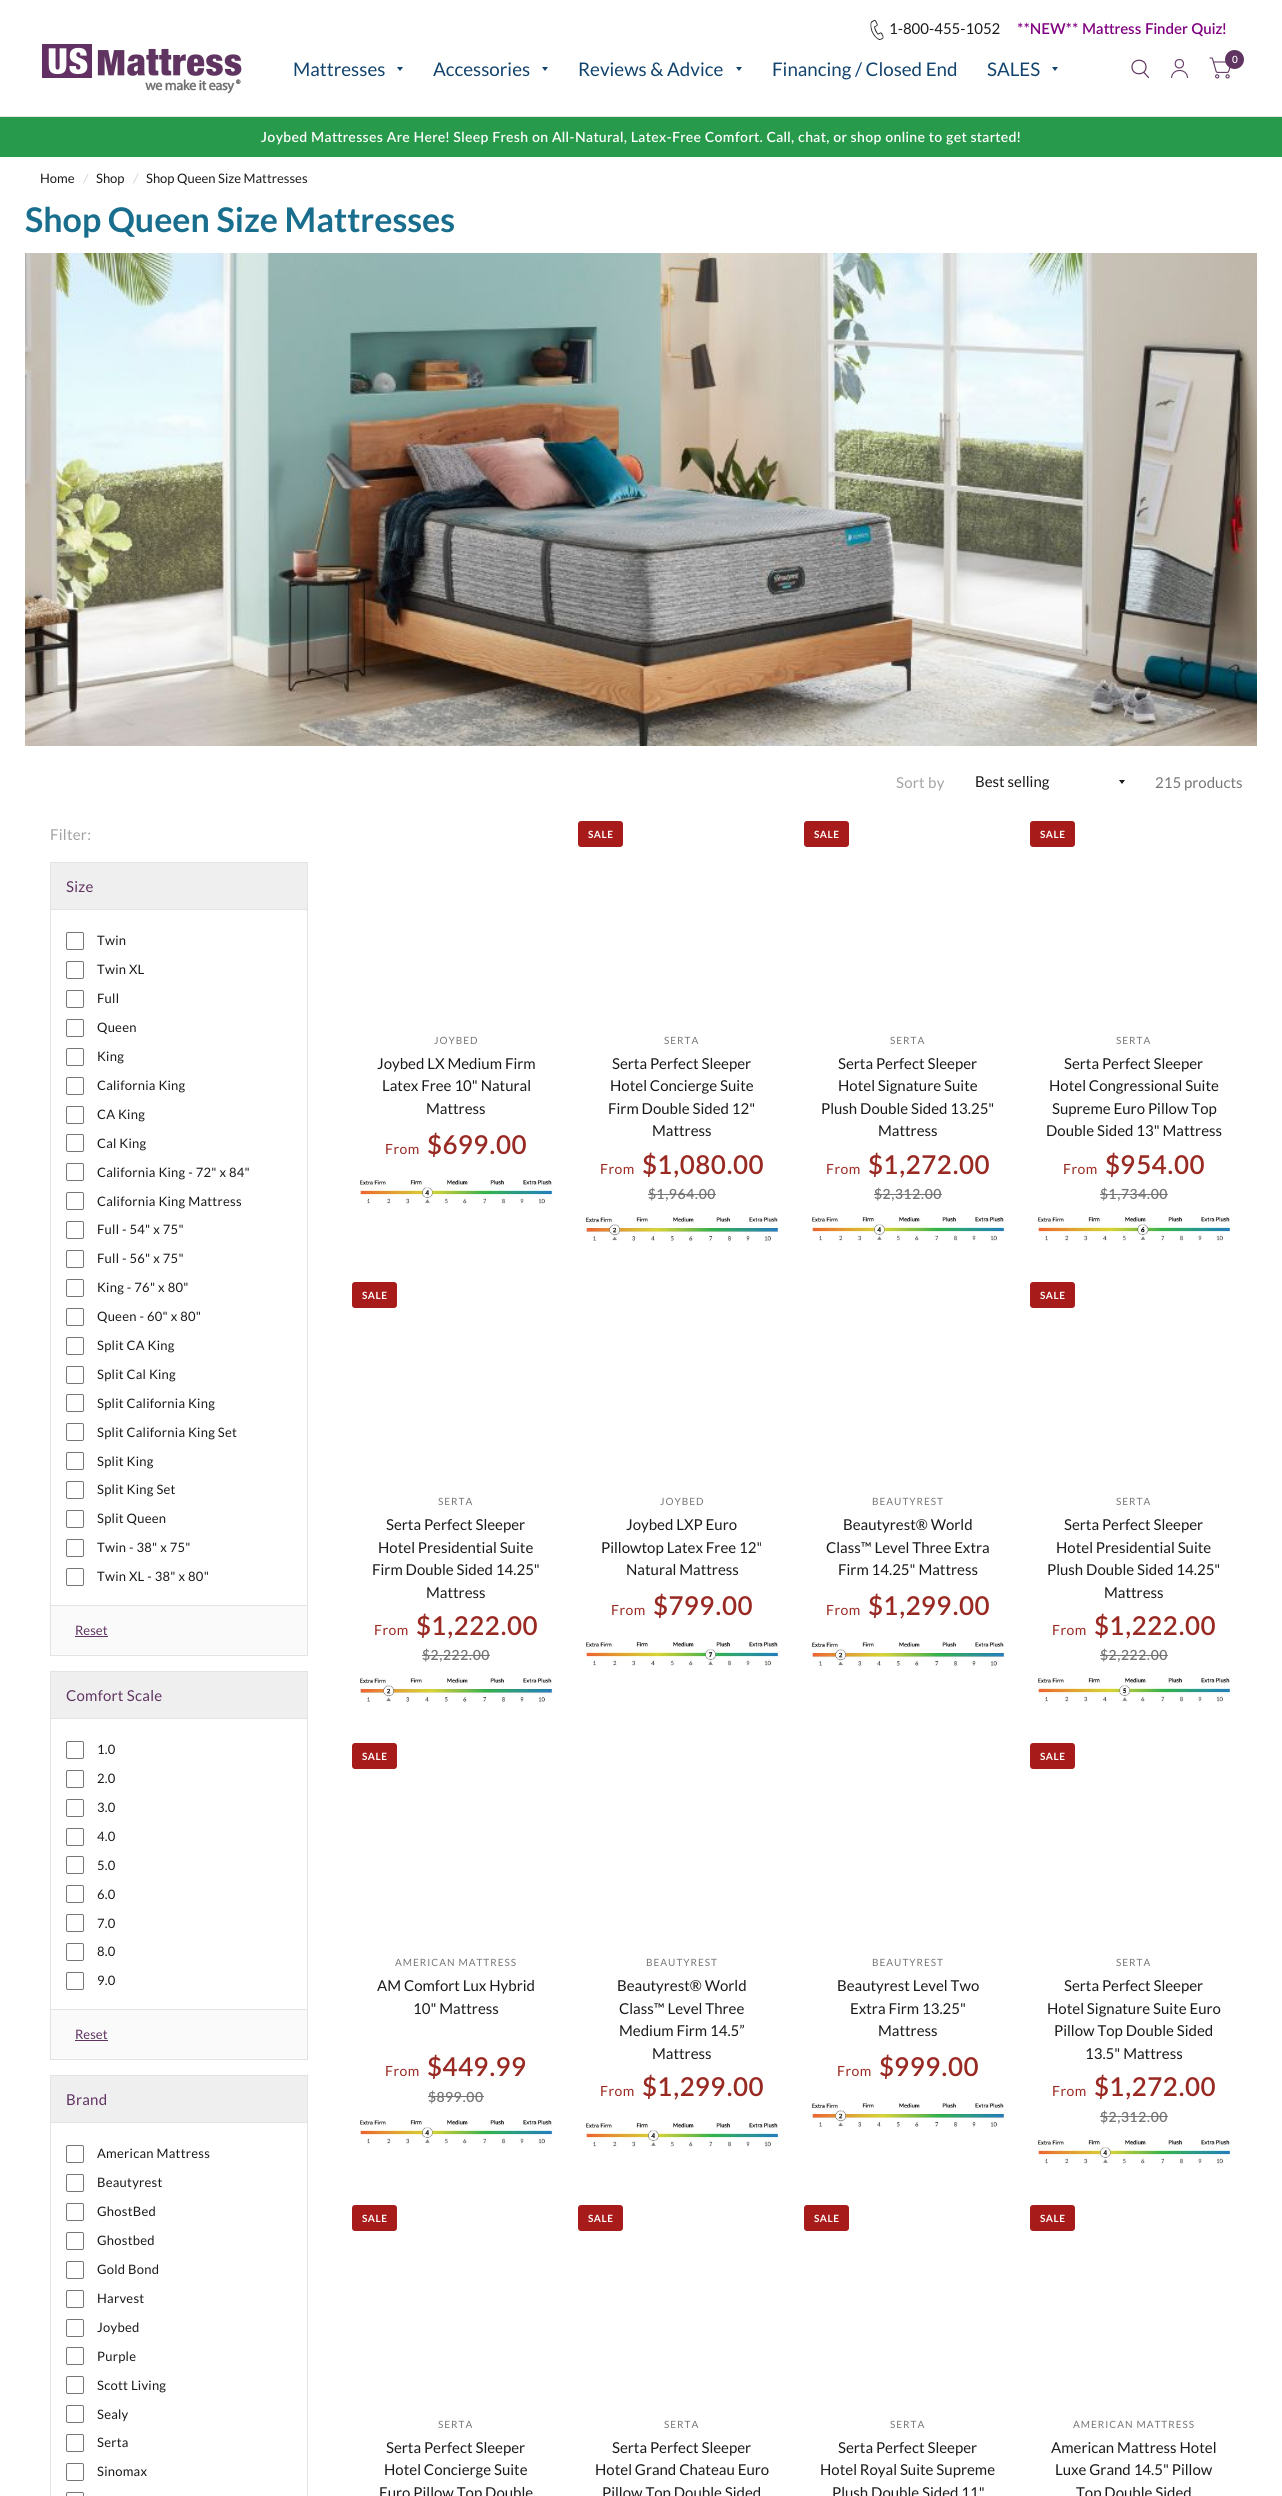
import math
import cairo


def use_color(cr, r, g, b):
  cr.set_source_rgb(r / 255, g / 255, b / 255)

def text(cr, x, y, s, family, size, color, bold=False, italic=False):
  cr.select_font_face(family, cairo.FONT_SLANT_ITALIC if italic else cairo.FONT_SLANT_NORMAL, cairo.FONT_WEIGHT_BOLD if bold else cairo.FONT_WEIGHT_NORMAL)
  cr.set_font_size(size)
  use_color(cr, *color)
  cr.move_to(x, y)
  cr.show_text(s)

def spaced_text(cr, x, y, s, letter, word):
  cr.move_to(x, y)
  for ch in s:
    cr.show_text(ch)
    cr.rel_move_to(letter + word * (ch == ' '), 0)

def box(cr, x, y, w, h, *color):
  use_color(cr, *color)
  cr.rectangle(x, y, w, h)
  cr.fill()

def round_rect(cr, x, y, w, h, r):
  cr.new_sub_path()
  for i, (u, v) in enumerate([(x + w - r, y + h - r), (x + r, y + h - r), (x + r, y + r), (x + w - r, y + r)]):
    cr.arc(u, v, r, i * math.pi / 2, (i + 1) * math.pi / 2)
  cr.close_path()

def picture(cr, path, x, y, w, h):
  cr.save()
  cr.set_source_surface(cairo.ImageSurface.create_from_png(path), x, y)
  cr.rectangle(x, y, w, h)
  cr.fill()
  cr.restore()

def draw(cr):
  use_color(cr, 255, 255, 255)
  cr.paint()
  box(cr, 0, 116, 1282, 1, 227, 227, 227)
  picture(cr, "img_01.png", 870, 20, 14, 20)
  picture(cr, "img_02.png", 42, 44, 200, 50)
  cr.new_path()
  cr.move_to(1144, 72.5)
  cr.line_to(1148.5, 77.5)
  cr.move_to(1146, 67)
  cr.curve_to(1146, 76, 1132, 76, 1132, 67)
  cr.curve_to(1132, 58, 1146, 58, 1146, 67)
  cr.close_path()
  use_color(cr, 96, 52, 97)
  cr.set_line_width(1.2)
  cr.set_line_cap(cairo.LINE_CAP_ROUND)
  cr.set_line_join(cairo.LINE_JOIN_ROUND)
  cr.stroke()
  picture(cr, "img_03.png", 1171, 58, 18, 21)
  picture(cr, "img_04.png", 1209, 57, 22, 22)
  cr.arc(1234.5, 59.5, 9.5, 0, 2 * math.pi)
  cr.fill()
  use_color(cr, 18, 67, 109)
  cr.new_path()
  cr.move_to(397, 67)
  cr.line_to(403, 67)
  cr.line_to(400, 71)
  cr.close_path()
  cr.fill()
  cr.new_path()
  cr.move_to(542, 67)
  cr.line_to(548, 67)
  cr.line_to(545, 71)
  cr.close_path()
  cr.fill()
  cr.new_path()
  cr.move_to(736, 67)
  cr.line_to(742, 67)
  cr.line_to(739, 71)
  cr.close_path()
  cr.fill()
  cr.new_path()
  cr.move_to(1052, 67)
  cr.line_to(1058, 67)
  cr.line_to(1055, 71)
  cr.close_path()
  cr.fill()
  box(cr, 0, 117, 1282, 40, 39, 154, 75)
  picture(cr, "img_05.png", 25, 253, 1232, 493)
  use_color(cr, 26, 26, 26)
  cr.new_path()
  cr.move_to(1119, 780)
  cr.line_to(1125, 780)
  cr.line_to(1122, 784)
  cr.close_path()
  cr.fill()
  box(cr, 51, 863, 256, 46, 239, 239, 239)
  box(cr, 50, 862, 258, 1, 227, 227, 227)
  box(cr, 307, 862, 1, 47, 227, 227, 227)
  box(cr, 50, 862, 1, 47, 227, 227, 227)
  cr.rectangle(50.5, 909.5, 257, 746)
  cr.set_line_width(1)
  cr.set_line_cap(cairo.LINE_CAP_BUTT)
  cr.set_line_join(cairo.LINE_JOIN_MITER)
  cr.stroke()
  round_rect(cr, 66.5, 932.5, 17, 17, 1.5)
  use_color(cr, 118, 118, 118)
  cr.stroke()
  round_rect(cr, 66.5, 961.5, 17, 17, 1.5)
  cr.stroke()
  round_rect(cr, 66.5, 990.5, 17, 17, 1.5)
  cr.stroke()
  round_rect(cr, 66.5, 1019.5, 17, 17, 1.5)
  cr.stroke()
  round_rect(cr, 66.5, 1048.5, 17, 17, 1.5)
  cr.stroke()
  round_rect(cr, 66.5, 1077.5, 17, 17, 1.5)
  cr.stroke()
  round_rect(cr, 66.5, 1106.5, 17, 17, 1.5)
  cr.stroke()
  round_rect(cr, 66.5, 1134.5, 17, 17, 1.5)
  cr.stroke()
  round_rect(cr, 66.5, 1163.5, 17, 17, 1.5)
  cr.stroke()
  round_rect(cr, 66.5, 1192.5, 17, 17, 1.5)
  cr.stroke()
  round_rect(cr, 66.5, 1221.5, 17, 17, 1.5)
  cr.stroke()
  round_rect(cr, 66.5, 1250.5, 17, 17, 1.5)
  cr.stroke()
  round_rect(cr, 66.5, 1279.5, 17, 17, 1.5)
  cr.stroke()
  round_rect(cr, 66.5, 1308.5, 17, 17, 1.5)
  cr.stroke()
  round_rect(cr, 66.5, 1337.5, 17, 17, 1.5)
  cr.stroke()
  round_rect(cr, 66.5, 1366.5, 17, 17, 1.5)
  cr.stroke()
  round_rect(cr, 66.5, 1394.5, 17, 17, 1.5)
  cr.stroke()
  round_rect(cr, 66.5, 1423.5, 17, 17, 1.5)
  cr.stroke()
  round_rect(cr, 66.5, 1452.5, 17, 17, 1.5)
  cr.stroke()
  round_rect(cr, 66.5, 1481.5, 17, 17, 1.5)
  cr.stroke()
  round_rect(cr, 66.5, 1510.5, 17, 17, 1.5)
  cr.stroke()
  round_rect(cr, 66.5, 1539.5, 17, 17, 1.5)
  cr.stroke()
  round_rect(cr, 66.5, 1568.5, 17, 17, 1.5)
  cr.stroke()
  box(cr, 51, 1606, 256, 49, 250, 250, 250)
  box(cr, 51, 1605, 256, 1, 227, 227, 227)
  box(cr, 75, 1636, 33, 1, 96, 52, 97)
  box(cr, 51, 1672, 256, 46, 239, 239, 239)
  box(cr, 50, 1671, 258, 1, 227, 227, 227)
  box(cr, 307, 1671, 1, 47, 227, 227, 227)
  box(cr, 50, 1671, 1, 47, 227, 227, 227)
  cr.rectangle(50.5, 1718.5, 257, 341)
  cr.stroke()
  round_rect(cr, 66.5, 1741.5, 17, 17, 1.5)
  use_color(cr, 118, 118, 118)
  cr.stroke()
  round_rect(cr, 66.5, 1770.5, 17, 17, 1.5)
  cr.stroke()
  round_rect(cr, 66.5, 1799.5, 17, 17, 1.5)
  cr.stroke()
  round_rect(cr, 66.5, 1828.5, 17, 17, 1.5)
  cr.stroke()
  round_rect(cr, 66.5, 1856.5, 17, 17, 1.5)
  cr.stroke()
  round_rect(cr, 66.5, 1885.5, 17, 17, 1.5)
  cr.stroke()
  round_rect(cr, 66.5, 1914.5, 17, 17, 1.5)
  cr.stroke()
  round_rect(cr, 66.5, 1943.5, 17, 17, 1.5)
  cr.stroke()
  round_rect(cr, 66.5, 1972.5, 17, 17, 1.5)
  cr.stroke()
  box(cr, 51, 2010, 256, 49, 250, 250, 250)
  box(cr, 51, 2009, 256, 1, 227, 227, 227)
  box(cr, 75, 2040, 33, 1, 96, 52, 97)
  box(cr, 51, 2076, 256, 46, 239, 239, 239)
  box(cr, 50, 2075, 258, 1, 227, 227, 227)
  box(cr, 307, 2075, 1, 47, 227, 227, 227)
  box(cr, 50, 2075, 1, 47, 227, 227, 227)
  cr.rectangle(50.5, 2122.5, 257, 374)
  cr.stroke()
  round_rect(cr, 66.5, 2145.5, 17, 17, 1.5)
  use_color(cr, 118, 118, 118)
  cr.stroke()
  round_rect(cr, 66.5, 2174.5, 17, 17, 1.5)
  cr.stroke()
  round_rect(cr, 66.5, 2203.5, 17, 17, 1.5)
  cr.stroke()
  round_rect(cr, 66.5, 2232.5, 17, 17, 1.5)
  cr.stroke()
  round_rect(cr, 66.5, 2261.5, 17, 17, 1.5)
  cr.stroke()
  round_rect(cr, 66.5, 2290.5, 17, 17, 1.5)
  cr.stroke()
  round_rect(cr, 66.5, 2319.5, 17, 17, 1.5)
  cr.stroke()
  round_rect(cr, 66.5, 2347.5, 17, 17, 1.5)
  cr.stroke()
  round_rect(cr, 66.5, 2376.5, 17, 17, 1.5)
  cr.stroke()
  round_rect(cr, 66.5, 2405.5, 17, 17, 1.5)
  cr.stroke()
  round_rect(cr, 66.5, 2434.5, 17, 17, 1.5)
  cr.stroke()
  round_rect(cr, 66.5, 2463.5, 17, 17, 1.5)
  cr.stroke()
  round_rect(cr, 66.5, 2492.5, 17, 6, 1.5)
  cr.stroke()
  picture(cr, "img_06.png", 360, 1180, 194, 24)
  use_color(cr, 167, 27, 26)
  round_rect(cr, 578, 821, 45, 26, 3)
  cr.fill()
  picture(cr, "img_07.png", 586, 1217, 194, 24)
  round_rect(cr, 804, 821, 45, 26, 3)
  cr.fill()
  picture(cr, "img_06.png", 812, 1217, 194, 24)
  round_rect(cr, 1030, 821, 45, 26, 3)
  cr.fill()
  picture(cr, "img_08.png", 1038, 1216, 194, 25)
  round_rect(cr, 352, 1282, 45, 26, 3)
  cr.fill()
  picture(cr, "img_09.png", 360, 1678, 194, 24)
  picture(cr, "img_10.png", 586, 1641, 194, 25)
  picture(cr, "img_07.png", 812, 1642, 194, 24)
  round_rect(cr, 1030, 1282, 45, 26, 3)
  cr.fill()
  picture(cr, "img_11.png", 1038, 1677, 194, 25)
  round_rect(cr, 352, 1743, 45, 26, 3)
  cr.fill()
  picture(cr, "img_06.png", 360, 2120, 194, 24)
  picture(cr, "img_06.png", 586, 2123, 194, 24)
  picture(cr, "img_07.png", 812, 2103, 194, 24)
  round_rect(cr, 1030, 1743, 45, 26, 3)
  cr.fill()
  picture(cr, "img_06.png", 1038, 2140, 194, 24)
  round_rect(cr, 352, 2205, 45, 26, 3)
  cr.fill()
  round_rect(cr, 578, 2205, 45, 26, 3)
  cr.fill()
  round_rect(cr, 804, 2205, 45, 26, 3)
  cr.fill()
  round_rect(cr, 1030, 2205, 45, 26, 3)
  cr.fill()
  text(cr, 889, 34, "1-800-455-1052", "Lato", 15, (26, 26, 26))
  text(cr, 1017, 34, "**NEW** Mattress Finder Quiz!", "Lato SemiBold", 15, (128, 0, 128))
  text(cr, 1232, 63, "0", "Lato SemiBold", 10, (255, 255, 255))
  text(cr, 293, 76, "Mattresses", "Lato", 18.75, (18, 67, 109))
  text(cr, 433, 76, "Accessories", "Lato", 18.75, (18, 67, 109))
  text(cr, 578, 76, "Reviews & Advice", "Lato", 18.75, (18, 67, 109))
  text(cr, 772, 76, "Financing / Closed End", "Lato", 18.75, (18, 67, 109))
  text(cr, 987, 76, "SALES", "Lato", 18.75, (18, 67, 109))
  cr.select_font_face("Lato SemiBold")
  cr.set_font_size(14)
  use_color(cr, 255, 255, 255)
  spaced_text(cr, 261, 142, "Joybed Mattresses Are Here! Sleep Fresh on All-Natural, Latex-Free Comfort. Call, chat, or shop online to get started!", 0.35, -0.4)
  text(cr, 40, 183, "Home", "Lato", 13, (26, 26, 26))
  text(cr, 83, 183, "/", "Lato", 13, (209, 209, 209), italic=True)
  text(cr, 96, 183, "Shop", "Lato", 13, (26, 26, 26))
  text(cr, 133, 183, "/", "Lato", 13, (209, 209, 209), italic=True)
  text(cr, 146, 183, "Shop Queen Size Mattresses", "Lato", 13, (26, 26, 26))
  text(cr, 25, 232, "Shop Queen Size Mattresses", "Lato", 34, (25, 110, 142), bold=True)
  cr.select_font_face("Lato")
  cr.set_font_size(15)
  use_color(cr, 163, 163, 163)
  spaced_text(cr, 896, 788, "Sort by", 0.25, 0)
  text(cr, 975, 787, "Best selling", "Lato", 15, (26, 26, 26))
  text(cr, 1155, 788, "215 products", "Lato", 15, (118, 118, 118))
  use_color(cr, 163, 163, 163)
  spaced_text(cr, 50, 840, "Filter:", 0.25, 0)
  use_color(cr, 96, 52, 97)
  spaced_text(cr, 66, 892, "Size", 0.25, 0)
  cr.set_font_size(13)
  use_color(cr, 26, 26, 26)
  spaced_text(cr, 97, 945, "Twin", 0.25, 0)
  spaced_text(cr, 97, 974, "Twin XL", 0.25, 0)
  spaced_text(cr, 97, 1003, "Full", 0.25, 0)
  spaced_text(cr, 97, 1032, "Queen", 0.25, 0)
  spaced_text(cr, 97, 1061, "King", 0.25, 0)
  spaced_text(cr, 97, 1090, "California King", 0.25, 0)
  spaced_text(cr, 97, 1119, "CA King", 0.25, 0)
  spaced_text(cr, 97, 1148, "Cal King", 0.25, 0)
  spaced_text(cr, 97, 1177, "California King - 72\" x 84\"", 0.25, 0)
  spaced_text(cr, 97, 1206, "California King Mattress", 0.25, 0)
  spaced_text(cr, 97, 1234, "Full - 54\" x 75\"", 0.25, 0)
  spaced_text(cr, 97, 1263, "Full - 56\" x 75\"", 0.25, 0)
  spaced_text(cr, 97, 1292, "King - 76\" x 80\"", 0.25, 0)
  spaced_text(cr, 97, 1321, "Queen - 60\" x 80\"", 0.25, 0)
  spaced_text(cr, 97, 1350, "Split CA King", 0.25, 0)
  spaced_text(cr, 97, 1379, "Split Cal King", 0.25, 0)
  spaced_text(cr, 97, 1408, "Split California King", 0.25, 0)
  spaced_text(cr, 97, 1437, "Split California King Set", 0.25, 0)
  spaced_text(cr, 97, 1466, "Split King", 0.25, 0)
  spaced_text(cr, 97, 1494, "Split King Set", 0.25, 0)
  spaced_text(cr, 97, 1523, "Split Queen", 0.25, 0)
  spaced_text(cr, 97, 1552, "Twin - 38\" x 75\"", 0.25, 0)
  spaced_text(cr, 97, 1581, "Twin XL - 38\" x 80\"", 0.25, 0)
  text(cr, 75, 1635, "Reset", "Lato", 13, (96, 52, 97))
  cr.set_font_size(15)
  spaced_text(cr, 66, 1701, "Comfort Scale", 0.25, 0)
  cr.set_font_size(13)
  use_color(cr, 26, 26, 26)
  spaced_text(cr, 97, 1754, "1.0", 0.25, 0)
  spaced_text(cr, 97, 1783, "2.0", 0.25, 0)
  spaced_text(cr, 97, 1812, "3.0", 0.25, 0)
  spaced_text(cr, 97, 1841, "4.0", 0.25, 0)
  spaced_text(cr, 97, 1870, "5.0", 0.25, 0)
  spaced_text(cr, 97, 1899, "6.0", 0.25, 0)
  spaced_text(cr, 97, 1928, "7.0", 0.25, 0)
  spaced_text(cr, 97, 1956, "8.0", 0.25, 0)
  spaced_text(cr, 97, 1985, "9.0", 0.25, 0)
  text(cr, 75, 2039, "Reset", "Lato", 13, (96, 52, 97))
  cr.set_font_size(15)
  spaced_text(cr, 66, 2105, "Brand", 0.25, 0)
  cr.set_font_size(13)
  use_color(cr, 26, 26, 26)
  spaced_text(cr, 97, 2158, "American Mattress", 0.25, 0)
  spaced_text(cr, 97, 2187, "Beautyrest", 0.25, 0)
  spaced_text(cr, 97, 2216, "GhostBed", 0.25, 0)
  spaced_text(cr, 97, 2245, "Ghostbed", 0.25, 0)
  spaced_text(cr, 97, 2274, "Gold Bond", 0.25, 0)
  spaced_text(cr, 97, 2303, "Harvest", 0.25, 0)
  spaced_text(cr, 97, 2332, "Joybed", 0.25, 0)
  spaced_text(cr, 97, 2361, "Purple", 0.25, 0)
  spaced_text(cr, 97, 2390, "Scott Living", 0.25, 0)
  spaced_text(cr, 97, 2419, "Sealy", 0.25, 0)
  spaced_text(cr, 97, 2447, "Serta", 0.25, 0)
  spaced_text(cr, 97, 2476, "Sinomax", 0.25, 0)
  cr.set_font_size(10)
  use_color(cr, 118, 118, 118)
  spaced_text(cr, 434, 1044, "JOYBED", 1, 0)
  text(cr, 377, 1069, "Joybed LX Medium Firm", "Lato", 15, (26, 26, 26))
  text(cr, 382, 1091, "Latex Free 10\" Natural", "Lato", 15, (26, 26, 26))
  text(cr, 426, 1114, "Mattress", "Lato", 15, (26, 26, 26))
  cr.set_font_size(14)
  use_color(cr, 153, 42, 35)
  spaced_text(cr, 385, 1154, "From", 0.5, 0)
  cr.select_font_face("Lato SemiBold")
  cr.set_font_size(26)
  spaced_text(cr, 427, 1154, "$699.00", 0.5, 0)
  cr.select_font_face("Lato", cairo.FONT_SLANT_NORMAL, cairo.FONT_WEIGHT_BOLD)
  cr.set_font_size(10)
  use_color(cr, 255, 255, 255)
  spaced_text(cr, 588, 838, "SALE", 0.5, 0)
  cr.select_font_face("Lato")
  use_color(cr, 118, 118, 118)
  spaced_text(cr, 664, 1044, "SERTA", 1, 0)
  text(cr, 612, 1069, "Serta Perfect Sleeper", "Lato", 15, (26, 26, 26))
  text(cr, 610, 1091, "Hotel Concierge Suite", "Lato", 15, (26, 26, 26))
  text(cr, 608, 1114, "Firm Double Sided 12\"", "Lato", 15, (26, 26, 26))
  text(cr, 652, 1136, "Mattress", "Lato", 15, (26, 26, 26))
  cr.set_font_size(14)
  use_color(cr, 153, 42, 35)
  spaced_text(cr, 600, 1174, "From", 0.5, 0)
  cr.select_font_face("Lato SemiBold")
  cr.set_font_size(26)
  spaced_text(cr, 642, 1174, "$1,080.00", 0.5, 0)
  cr.set_font_size(14)
  use_color(cr, 118, 118, 118)
  spaced_text(cr, 648, 1199, "$1,964.00", 0.5, 0)
  box(cr, 648, 1194, 68, 1, 115, 115, 115)
  cr.select_font_face("Lato", cairo.FONT_SLANT_NORMAL, cairo.FONT_WEIGHT_BOLD)
  cr.set_font_size(10)
  use_color(cr, 255, 255, 255)
  spaced_text(cr, 814, 838, "SALE", 0.5, 0)
  cr.select_font_face("Lato")
  use_color(cr, 118, 118, 118)
  spaced_text(cr, 890, 1044, "SERTA", 1, 0)
  text(cr, 838, 1069, "Serta Perfect Sleeper", "Lato", 15, (26, 26, 26))
  text(cr, 838, 1091, "Hotel Signature Suite", "Lato", 15, (26, 26, 26))
  text(cr, 821, 1114, "Plush Double Sided 13.25\"", "Lato", 15, (26, 26, 26))
  text(cr, 878, 1136, "Mattress", "Lato", 15, (26, 26, 26))
  cr.set_font_size(14)
  use_color(cr, 153, 42, 35)
  spaced_text(cr, 826, 1174, "From", 0.5, 0)
  cr.select_font_face("Lato SemiBold")
  cr.set_font_size(26)
  spaced_text(cr, 868, 1174, "$1,272.00", 0.5, 0)
  cr.set_font_size(14)
  use_color(cr, 118, 118, 118)
  spaced_text(cr, 874, 1199, "$2,312.00", 0.5, 0)
  box(cr, 874, 1194, 68, 1, 115, 115, 115)
  cr.select_font_face("Lato", cairo.FONT_SLANT_NORMAL, cairo.FONT_WEIGHT_BOLD)
  cr.set_font_size(10)
  use_color(cr, 255, 255, 255)
  spaced_text(cr, 1040, 838, "SALE", 0.5, 0)
  cr.select_font_face("Lato")
  use_color(cr, 118, 118, 118)
  spaced_text(cr, 1116, 1044, "SERTA", 1, 0)
  text(cr, 1064, 1069, "Serta Perfect Sleeper", "Lato", 15, (26, 26, 26))
  text(cr, 1049, 1091, "Hotel Congressional Suite", "Lato", 15, (26, 26, 26))
  text(cr, 1052, 1114, "Supreme Euro Pillow Top", "Lato", 15, (26, 26, 26))
  text(cr, 1046, 1136, "Double Sided 13\" Mattress", "Lato", 15, (26, 26, 26))
  cr.set_font_size(14)
  use_color(cr, 153, 42, 35)
  spaced_text(cr, 1063, 1174, "From", 0.5, 0)
  cr.select_font_face("Lato SemiBold")
  cr.set_font_size(26)
  spaced_text(cr, 1105, 1174, "$954.00", 0.5, 0)
  cr.set_font_size(14)
  use_color(cr, 118, 118, 118)
  spaced_text(cr, 1100, 1199, "$1,734.00", 0.5, 0)
  box(cr, 1100, 1194, 68, 1, 115, 115, 115)
  cr.select_font_face("Lato", cairo.FONT_SLANT_NORMAL, cairo.FONT_WEIGHT_BOLD)
  cr.set_font_size(10)
  use_color(cr, 255, 255, 255)
  spaced_text(cr, 362, 1299, "SALE", 0.5, 0)
  cr.select_font_face("Lato")
  use_color(cr, 118, 118, 118)
  spaced_text(cr, 438, 1505, "SERTA", 1, 0)
  text(cr, 386, 1530, "Serta Perfect Sleeper", "Lato", 15, (26, 26, 26))
  text(cr, 378, 1553, "Hotel Presidential Suite", "Lato", 15, (26, 26, 26))
  text(cr, 372, 1575, "Firm Double Sided 14.25\"", "Lato", 15, (26, 26, 26))
  text(cr, 426, 1598, "Mattress", "Lato", 15, (26, 26, 26))
  cr.set_font_size(14)
  use_color(cr, 153, 42, 35)
  spaced_text(cr, 374, 1635, "From", 0.5, 0)
  cr.select_font_face("Lato SemiBold")
  cr.set_font_size(26)
  spaced_text(cr, 416, 1635, "$1,222.00", 0.5, 0)
  cr.set_font_size(14)
  use_color(cr, 118, 118, 118)
  spaced_text(cr, 422, 1660, "$2,222.00", 0.5, 0)
  box(cr, 422, 1655, 68, 1, 115, 115, 115)
  cr.select_font_face("Lato")
  cr.set_font_size(10)
  use_color(cr, 118, 118, 118)
  spaced_text(cr, 660, 1505, "JOYBED", 1, 0)
  text(cr, 626, 1530, "Joybed LXP Euro", "Lato", 15, (26, 26, 26))
  text(cr, 601, 1553, "Pillowtop Latex Free 12\"", "Lato", 15, (26, 26, 26))
  text(cr, 626, 1575, "Natural Mattress", "Lato", 15, (26, 26, 26))
  cr.set_font_size(14)
  use_color(cr, 153, 42, 35)
  spaced_text(cr, 611, 1615, "From", 0.5, 0)
  cr.select_font_face("Lato SemiBold")
  cr.set_font_size(26)
  spaced_text(cr, 653, 1615, "$799.00", 0.5, 0)
  cr.select_font_face("Lato")
  cr.set_font_size(10)
  use_color(cr, 118, 118, 118)
  spaced_text(cr, 872, 1505, "BEAUTYREST", 1, 0)
  text(cr, 843, 1530, "Beautyrest® World", "Lato", 15, (26, 26, 26))
  text(cr, 826, 1553, "Class™ Level Three Extra", "Lato", 15, (26, 26, 26))
  text(cr, 838, 1575, "Firm 14.25\" Mattress", "Lato", 15, (26, 26, 26))
  cr.set_font_size(14)
  use_color(cr, 153, 42, 35)
  spaced_text(cr, 826, 1615, "From", 0.5, 0)
  cr.select_font_face("Lato SemiBold")
  cr.set_font_size(26)
  spaced_text(cr, 868, 1615, "$1,299.00", 0.5, 0)
  cr.select_font_face("Lato", cairo.FONT_SLANT_NORMAL, cairo.FONT_WEIGHT_BOLD)
  cr.set_font_size(10)
  use_color(cr, 255, 255, 255)
  spaced_text(cr, 1040, 1299, "SALE", 0.5, 0)
  cr.select_font_face("Lato")
  use_color(cr, 118, 118, 118)
  spaced_text(cr, 1116, 1505, "SERTA", 1, 0)
  text(cr, 1064, 1530, "Serta Perfect Sleeper", "Lato", 15, (26, 26, 26))
  text(cr, 1056, 1553, "Hotel Presidential Suite", "Lato", 15, (26, 26, 26))
  text(cr, 1047, 1575, "Plush Double Sided 14.25\"", "Lato", 15, (26, 26, 26))
  text(cr, 1104, 1598, "Mattress", "Lato", 15, (26, 26, 26))
  cr.set_font_size(14)
  use_color(cr, 153, 42, 35)
  spaced_text(cr, 1052, 1635, "From", 0.5, 0)
  cr.select_font_face("Lato SemiBold")
  cr.set_font_size(26)
  spaced_text(cr, 1094, 1635, "$1,222.00", 0.5, 0)
  cr.set_font_size(14)
  use_color(cr, 118, 118, 118)
  spaced_text(cr, 1100, 1660, "$2,222.00", 0.5, 0)
  box(cr, 1100, 1655, 68, 1, 115, 115, 115)
  cr.select_font_face("Lato", cairo.FONT_SLANT_NORMAL, cairo.FONT_WEIGHT_BOLD)
  cr.set_font_size(10)
  use_color(cr, 255, 255, 255)
  spaced_text(cr, 362, 1760, "SALE", 0.5, 0)
  cr.select_font_face("Lato")
  use_color(cr, 118, 118, 118)
  spaced_text(cr, 395, 1966, "AMERICAN MATTRESS", 1, 0)
  text(cr, 377, 1991, "AM Comfort Lux Hybrid", "Lato", 15, (26, 26, 26))
  text(cr, 413, 2014, "10\" Mattress", "Lato", 15, (26, 26, 26))
  cr.set_font_size(14)
  use_color(cr, 153, 42, 35)
  spaced_text(cr, 385, 2076, "From", 0.5, 0)
  cr.select_font_face("Lato SemiBold")
  cr.set_font_size(26)
  spaced_text(cr, 427, 2076, "$449.99", 0.5, 0)
  cr.set_font_size(14)
  use_color(cr, 118, 118, 118)
  spaced_text(cr, 428, 2102, "$899.00", 0.5, 0)
  box(cr, 428, 2096, 56, 1, 115, 115, 115)
  cr.select_font_face("Lato")
  cr.set_font_size(10)
  use_color(cr, 118, 118, 118)
  spaced_text(cr, 646, 1966, "BEAUTYREST", 1, 0)
  text(cr, 617, 1991, "Beautyrest® World", "Lato", 15, (26, 26, 26))
  text(cr, 619, 2014, "Class™ Level Three", "Lato", 15, (26, 26, 26))
  text(cr, 619, 2036, "Medium Firm 14.5”", "Lato", 15, (26, 26, 26))
  text(cr, 652, 2059, "Mattress", "Lato", 15, (26, 26, 26))
  cr.set_font_size(14)
  use_color(cr, 153, 42, 35)
  spaced_text(cr, 600, 2096, "From", 0.5, 0)
  cr.select_font_face("Lato SemiBold")
  cr.set_font_size(26)
  spaced_text(cr, 642, 2096, "$1,299.00", 0.5, 0)
  cr.select_font_face("Lato")
  cr.set_font_size(10)
  use_color(cr, 118, 118, 118)
  spaced_text(cr, 872, 1966, "BEAUTYREST", 1, 0)
  text(cr, 837, 1991, "Beautyrest Level Two", "Lato", 15, (26, 26, 26))
  text(cr, 850, 2014, "Extra Firm 13.25\"", "Lato", 15, (26, 26, 26))
  text(cr, 878, 2036, "Mattress", "Lato", 15, (26, 26, 26))
  cr.set_font_size(14)
  use_color(cr, 153, 42, 35)
  spaced_text(cr, 837, 2076, "From", 0.5, 0)
  cr.select_font_face("Lato SemiBold")
  cr.set_font_size(26)
  spaced_text(cr, 879, 2076, "$999.00", 0.5, 0)
  cr.select_font_face("Lato", cairo.FONT_SLANT_NORMAL, cairo.FONT_WEIGHT_BOLD)
  cr.set_font_size(10)
  use_color(cr, 255, 255, 255)
  spaced_text(cr, 1040, 1760, "SALE", 0.5, 0)
  cr.select_font_face("Lato")
  use_color(cr, 118, 118, 118)
  spaced_text(cr, 1116, 1966, "SERTA", 1, 0)
  text(cr, 1064, 1991, "Serta Perfect Sleeper", "Lato", 15, (26, 26, 26))
  text(cr, 1047, 2014, "Hotel Signature Suite Euro", "Lato", 15, (26, 26, 26))
  text(cr, 1054, 2036, "Pillow Top Double Sided", "Lato", 15, (26, 26, 26))
  text(cr, 1085, 2059, "13.5\" Mattress", "Lato", 15, (26, 26, 26))
  cr.set_font_size(14)
  use_color(cr, 153, 42, 35)
  spaced_text(cr, 1052, 2096, "From", 0.5, 0)
  cr.select_font_face("Lato SemiBold")
  cr.set_font_size(26)
  spaced_text(cr, 1094, 2096, "$1,272.00", 0.5, 0)
  cr.set_font_size(14)
  use_color(cr, 118, 118, 118)
  spaced_text(cr, 1100, 2122, "$2,312.00", 0.5, 0)
  box(cr, 1100, 2116, 68, 1, 115, 115, 115)
  cr.select_font_face("Lato", cairo.FONT_SLANT_NORMAL, cairo.FONT_WEIGHT_BOLD)
  cr.set_font_size(10)
  use_color(cr, 255, 255, 255)
  spaced_text(cr, 362, 2222, "SALE", 0.5, 0)
  cr.select_font_face("Lato")
  use_color(cr, 118, 118, 118)
  spaced_text(cr, 438, 2428, "SERTA", 1, 0)
  text(cr, 386, 2453, "Serta Perfect Sleeper", "Lato", 15, (26, 26, 26))
  text(cr, 384, 2475, "Hotel Concierge Suite", "Lato", 15, (26, 26, 26))
  text(cr, 379, 2498, "Euro Pillow Top Double", "Lato", 15, (26, 26, 26))
  cr.select_font_face("Lato", cairo.FONT_SLANT_NORMAL, cairo.FONT_WEIGHT_BOLD)
  cr.set_font_size(10)
  use_color(cr, 255, 255, 255)
  spaced_text(cr, 588, 2222, "SALE", 0.5, 0)
  cr.select_font_face("Lato")
  use_color(cr, 118, 118, 118)
  spaced_text(cr, 664, 2428, "SERTA", 1, 0)
  text(cr, 612, 2453, "Serta Perfect Sleeper", "Lato", 15, (26, 26, 26))
  text(cr, 595, 2475, "Hotel Grand Chateau Euro", "Lato", 15, (26, 26, 26))
  text(cr, 602, 2498, "Pillow Top Double Sided", "Lato", 15, (26, 26, 26))
  cr.select_font_face("Lato", cairo.FONT_SLANT_NORMAL, cairo.FONT_WEIGHT_BOLD)
  cr.set_font_size(10)
  use_color(cr, 255, 255, 255)
  spaced_text(cr, 814, 2222, "SALE", 0.5, 0)
  cr.select_font_face("Lato")
  use_color(cr, 118, 118, 118)
  spaced_text(cr, 890, 2428, "SERTA", 1, 0)
  text(cr, 838, 2453, "Serta Perfect Sleeper", "Lato", 15, (26, 26, 26))
  text(cr, 820, 2475, "Hotel Royal Suite Supreme", "Lato", 15, (26, 26, 26))
  text(cr, 832, 2498, "Plush Double Sided 11\"", "Lato", 15, (26, 26, 26))
  cr.select_font_face("Lato", cairo.FONT_SLANT_NORMAL, cairo.FONT_WEIGHT_BOLD)
  cr.set_font_size(10)
  use_color(cr, 255, 255, 255)
  spaced_text(cr, 1040, 2222, "SALE", 0.5, 0)
  cr.select_font_face("Lato")
  use_color(cr, 118, 118, 118)
  spaced_text(cr, 1073, 2428, "AMERICAN MATTRESS", 1, 0)
  text(cr, 1051, 2453, "American Mattress Hotel", "Lato", 15, (26, 26, 26))
  text(cr, 1055, 2475, "Luxe Grand 14.5\" Pillow", "Lato", 15, (26, 26, 26))
  text(cr, 1076, 2498, "Top Double Sided", "Lato", 15, (26, 26, 26))


surface = cairo.ImageSurface(cairo.FORMAT_RGB24, 1282, 2496)
cr = cairo.Context(surface)
options = cairo.FontOptions()
options.set_hint_metrics(cairo.HINT_METRICS_OFF)
options.set_hint_style(cairo.HINT_STYLE_NONE)
cr.set_font_options(options)
cr.set_miter_limit(4)
draw(cr)
surface.write_to_png("out.png")
